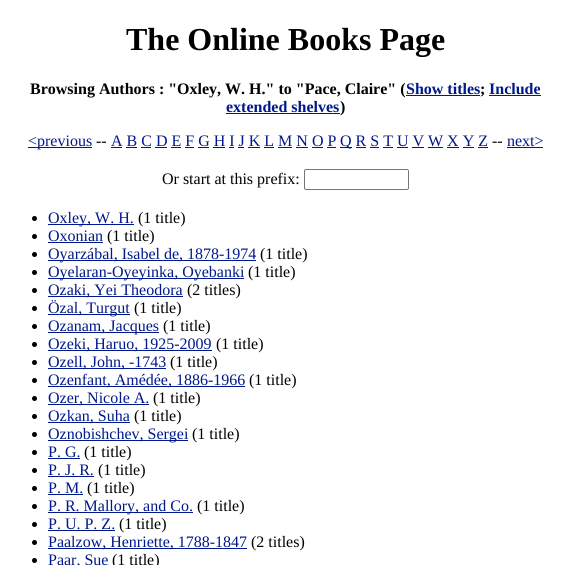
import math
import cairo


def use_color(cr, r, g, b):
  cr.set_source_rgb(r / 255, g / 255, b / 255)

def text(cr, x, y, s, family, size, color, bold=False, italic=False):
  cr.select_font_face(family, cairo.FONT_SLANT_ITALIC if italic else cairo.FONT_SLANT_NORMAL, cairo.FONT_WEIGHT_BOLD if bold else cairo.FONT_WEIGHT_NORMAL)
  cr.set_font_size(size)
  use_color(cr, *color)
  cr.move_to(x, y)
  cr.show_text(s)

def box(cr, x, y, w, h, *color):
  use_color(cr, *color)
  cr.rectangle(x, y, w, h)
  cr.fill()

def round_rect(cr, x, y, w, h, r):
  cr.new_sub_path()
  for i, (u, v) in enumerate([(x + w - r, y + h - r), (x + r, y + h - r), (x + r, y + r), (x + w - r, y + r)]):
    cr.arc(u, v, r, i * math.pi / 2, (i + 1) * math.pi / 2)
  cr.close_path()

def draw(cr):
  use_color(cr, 255, 255, 255)
  cr.paint()
  box(cr, 406, 95, 74, 1, 0, 24, 140)
  box(cr, 489, 95, 52, 1, 0, 24, 140)
  box(cr, 226, 113, 114, 1, 0, 24, 140)
  box(cr, 28, 147, 64, 1, 0, 24, 140)
  box(cr, 111, 147, 11, 1, 0, 24, 140)
  box(cr, 340, 147, 12, 1, 0, 24, 140)
  box(cr, 507, 147, 36, 1, 0, 24, 140)
  box(cr, 126, 147, 11, 1, 0, 24, 140)
  box(cr, 141, 147, 10, 1, 0, 24, 140)
  box(cr, 155, 147, 12, 1, 0, 24, 140)
  box(cr, 171, 147, 10, 1, 0, 24, 140)
  box(cr, 185, 147, 9, 1, 0, 24, 140)
  box(cr, 198, 147, 11, 1, 0, 24, 140)
  box(cr, 213, 147, 12, 1, 0, 24, 140)
  box(cr, 229, 147, 5, 1, 0, 24, 140)
  box(cr, 238, 147, 6, 1, 0, 24, 140)
  box(cr, 248, 147, 12, 1, 0, 24, 140)
  box(cr, 264, 147, 10, 1, 0, 24, 140)
  box(cr, 278, 147, 14, 1, 0, 24, 140)
  box(cr, 296, 147, 12, 1, 0, 24, 140)
  box(cr, 312, 147, 11, 1, 0, 24, 140)
  box(cr, 327, 147, 9, 1, 0, 24, 140)
  box(cr, 356, 147, 10, 1, 0, 24, 140)
  box(cr, 370, 147, 9, 1, 0, 24, 140)
  box(cr, 383, 147, 10, 1, 0, 24, 140)
  box(cr, 397, 147, 11, 1, 0, 24, 140)
  box(cr, 412, 147, 12, 1, 0, 24, 140)
  box(cr, 428, 147, 15, 1, 0, 24, 140)
  box(cr, 447, 147, 12, 1, 0, 24, 140)
  box(cr, 463, 147, 11, 1, 0, 24, 140)
  box(cr, 478, 147, 10, 1, 0, 24, 140)
  round_rect(cr, 304.5, 169.5, 104, 20, 1.5)
  use_color(cr, 118, 118, 118)
  cr.set_line_width(1)
  cr.stroke()
  use_color(cr, 0, 0, 0)
  cr.arc(34.5, 218.5, 2.5, 0, 2 * math.pi)
  cr.fill()
  box(cr, 48, 224, 86, 1, 0, 24, 140)
  use_color(cr, 0, 0, 0)
  cr.arc(34.5, 236.5, 2.5, 0, 2 * math.pi)
  cr.fill()
  box(cr, 48, 242, 55, 1, 0, 24, 140)
  use_color(cr, 0, 0, 0)
  cr.arc(34.5, 254.5, 2.5, 0, 2 * math.pi)
  cr.fill()
  box(cr, 48, 260, 208, 1, 0, 24, 140)
  use_color(cr, 0, 0, 0)
  cr.arc(34.5, 272.5, 2.5, 0, 2 * math.pi)
  cr.fill()
  box(cr, 48, 278, 196, 1, 0, 24, 140)
  use_color(cr, 0, 0, 0)
  cr.arc(34.5, 290.5, 2.5, 0, 2 * math.pi)
  cr.fill()
  box(cr, 48, 296, 135, 1, 0, 24, 140)
  use_color(cr, 0, 0, 0)
  cr.arc(34.5, 308.5, 2.5, 0, 2 * math.pi)
  cr.fill()
  box(cr, 48, 314, 82, 1, 0, 24, 140)
  use_color(cr, 0, 0, 0)
  cr.arc(34.5, 326.5, 2.5, 0, 2 * math.pi)
  cr.fill()
  box(cr, 48, 332, 111, 1, 0, 24, 140)
  use_color(cr, 0, 0, 0)
  cr.arc(34.5, 344.5, 2.5, 0, 2 * math.pi)
  cr.fill()
  box(cr, 48, 350, 164, 1, 0, 24, 140)
  use_color(cr, 0, 0, 0)
  cr.arc(34.5, 362.5, 2.5, 0, 2 * math.pi)
  cr.fill()
  box(cr, 48, 368, 118, 1, 0, 24, 140)
  use_color(cr, 0, 0, 0)
  cr.arc(34.5, 380.5, 2.5, 0, 2 * math.pi)
  cr.fill()
  box(cr, 48, 386, 197, 1, 0, 24, 140)
  use_color(cr, 0, 0, 0)
  cr.arc(34.5, 398.5, 2.5, 0, 2 * math.pi)
  cr.fill()
  box(cr, 48, 404, 101, 1, 0, 24, 140)
  use_color(cr, 0, 0, 0)
  cr.arc(34.5, 416.5, 2.5, 0, 2 * math.pi)
  cr.fill()
  box(cr, 48, 422, 82, 1, 0, 24, 140)
  use_color(cr, 0, 0, 0)
  cr.arc(34.5, 434.5, 2.5, 0, 2 * math.pi)
  cr.fill()
  box(cr, 48, 440, 140, 1, 0, 24, 140)
  use_color(cr, 0, 0, 0)
  cr.arc(34.5, 452.5, 2.5, 0, 2 * math.pi)
  cr.fill()
  box(cr, 48, 458, 32, 1, 0, 24, 140)
  use_color(cr, 0, 0, 0)
  cr.arc(34.5, 470.5, 2.5, 0, 2 * math.pi)
  cr.fill()
  box(cr, 48, 476, 46, 1, 0, 24, 140)
  use_color(cr, 0, 0, 0)
  cr.arc(34.5, 488.5, 2.5, 0, 2 * math.pi)
  cr.fill()
  box(cr, 48, 494, 35, 1, 0, 24, 140)
  use_color(cr, 0, 0, 0)
  cr.arc(34.5, 506.5, 2.5, 0, 2 * math.pi)
  cr.fill()
  box(cr, 48, 512, 145, 1, 0, 24, 140)
  use_color(cr, 0, 0, 0)
  cr.arc(34.5, 524.5, 2.5, 0, 2 * math.pi)
  cr.fill()
  box(cr, 48, 530, 67, 1, 0, 24, 140)
  use_color(cr, 0, 0, 0)
  cr.arc(34.5, 542.5, 2.5, 0, 2 * math.pi)
  cr.fill()
  box(cr, 48, 548, 199, 1, 0, 24, 140)
  use_color(cr, 0, 0, 0)
  cr.arc(34.5, 560.5, 2.5, 0, 2 * math.pi)
  cr.fill()
  text(cr, 126, 50, "The Online Books Page", "Liberation Serif", 32, (0, 0, 0), bold=True)
  text(cr, 30, 94, "Browsing Authors : \"Oxley, W. H.\" to \"Pace, Claire\" (", "Liberation Serif", 16, (0, 0, 0), bold=True)
  text(cr, 406, 94, "Show titles", "Liberation Serif", 16, (0, 24, 140), bold=True)
  text(cr, 480, 94, ";", "Liberation Serif", 16, (0, 0, 0), bold=True)
  text(cr, 489, 94, "Include", "Liberation Serif", 16, (0, 24, 140), bold=True)
  text(cr, 226, 112, "extended shelves", "Liberation Serif", 16, (0, 24, 140), bold=True)
  text(cr, 340, 112, ")", "Liberation Serif", 16, (0, 0, 0), bold=True)
  text(cr, 28, 146, "<previous", "Liberation Serif", 16, (0, 24, 140))
  text(cr, 96, 146, "--", "Liberation Serif", 16, (0, 0, 0))
  text(cr, 111, 146, "A B C D E F G H I J K L M N O P", "Liberation Serif", 16, (0, 24, 140))
  text(cr, 340, 146, "Q R S T U V W X Y Z", "Liberation Serif", 16, (0, 24, 140))
  text(cr, 492, 146, "--", "Liberation Serif", 16, (0, 0, 0))
  text(cr, 507, 146, "next>", "Liberation Serif", 16, (0, 24, 140))
  text(cr, 162, 184, "Or start at this prefix:", "Liberation Serif", 16, (0, 0, 0))
  text(cr, 48, 223, "Oxley, W. H.", "Liberation Serif", 16, (0, 24, 140))
  text(cr, 138, 223, "(1 title)", "Liberation Serif", 16, (0, 0, 0))
  text(cr, 48, 241, "Oxonian", "Liberation Serif", 16, (0, 24, 140))
  text(cr, 107, 241, "(1 title)", "Liberation Serif", 16, (0, 0, 0))
  text(cr, 48, 259, "Oyarzábal, Isabel de, 1878-1974", "Liberation Serif", 16, (0, 24, 140))
  text(cr, 260, 259, "(1 title)", "Liberation Serif", 16, (0, 0, 0))
  text(cr, 48, 277, "Oyelaran-Oyeyinka, Oyebanki", "Liberation Serif", 16, (0, 24, 140))
  text(cr, 248, 277, "(1 title)", "Liberation Serif", 16, (0, 0, 0))
  text(cr, 48, 295, "Ozaki, Yei Theodora", "Liberation Serif", 16, (0, 24, 140))
  text(cr, 187, 295, "(2 titles)", "Liberation Serif", 16, (0, 0, 0))
  text(cr, 48, 313, "Özal, Turgut", "Liberation Serif", 16, (0, 24, 140))
  text(cr, 134, 313, "(1 title)", "Liberation Serif", 16, (0, 0, 0))
  text(cr, 48, 331, "Ozanam, Jacques", "Liberation Serif", 16, (0, 24, 140))
  text(cr, 163, 331, "(1 title)", "Liberation Serif", 16, (0, 0, 0))
  text(cr, 48, 349, "Ozeki, Haruo, 1925-2009", "Liberation Serif", 16, (0, 24, 140))
  text(cr, 216, 349, "(1 title)", "Liberation Serif", 16, (0, 0, 0))
  text(cr, 48, 367, "Ozell, John, -1743", "Liberation Serif", 16, (0, 24, 140))
  text(cr, 170, 367, "(1 title)", "Liberation Serif", 16, (0, 0, 0))
  text(cr, 48, 385, "Ozenfant, Amédée, 1886-1966", "Liberation Serif", 16, (0, 24, 140))
  text(cr, 249, 385, "(1 title)", "Liberation Serif", 16, (0, 0, 0))
  text(cr, 48, 403, "Ozer, Nicole A.", "Liberation Serif", 16, (0, 24, 140))
  text(cr, 153, 403, "(1 title)", "Liberation Serif", 16, (0, 0, 0))
  text(cr, 48, 421, "Ozkan, Suha", "Liberation Serif", 16, (0, 24, 140))
  text(cr, 134, 421, "(1 title)", "Liberation Serif", 16, (0, 0, 0))
  text(cr, 48, 439, "Oznobishchev, Sergei", "Liberation Serif", 16, (0, 24, 140))
  text(cr, 192, 439, "(1 title)", "Liberation Serif", 16, (0, 0, 0))
  text(cr, 48, 457, "P. G.", "Liberation Serif", 16, (0, 24, 140))
  text(cr, 84, 457, "(1 title)", "Liberation Serif", 16, (0, 0, 0))
  text(cr, 48, 475, "P. J. R.", "Liberation Serif", 16, (0, 24, 140))
  text(cr, 98, 475, "(1 title)", "Liberation Serif", 16, (0, 0, 0))
  text(cr, 48, 493, "P. M.", "Liberation Serif", 16, (0, 24, 140))
  text(cr, 87, 493, "(1 title)", "Liberation Serif", 16, (0, 0, 0))
  text(cr, 48, 511, "P. R. Mallory, and Co.", "Liberation Serif", 16, (0, 24, 140))
  text(cr, 197, 511, "(1 title)", "Liberation Serif", 16, (0, 0, 0))
  text(cr, 48, 529, "P. U. P. Z.", "Liberation Serif", 16, (0, 24, 140))
  text(cr, 119, 529, "(1 title)", "Liberation Serif", 16, (0, 0, 0))
  text(cr, 48, 547, "Paalzow, Henriette, 1788-1847", "Liberation Serif", 16, (0, 24, 140))
  text(cr, 251, 547, "(2 titles)", "Liberation Serif", 16, (0, 0, 0))
  text(cr, 48, 565, "Paar, Sue", "Liberation Serif", 16, (0, 24, 140))
  text(cr, 112, 565, "(1 title)", "Liberation Serif", 16, (0, 0, 0))


surface = cairo.ImageSurface(cairo.FORMAT_RGB24, 571, 565)
cr = cairo.Context(surface)
options = cairo.FontOptions()
options.set_hint_metrics(cairo.HINT_METRICS_OFF)
options.set_hint_style(cairo.HINT_STYLE_NONE)
cr.set_font_options(options)
cr.set_miter_limit(4)
draw(cr)
surface.write_to_png("out.png")
